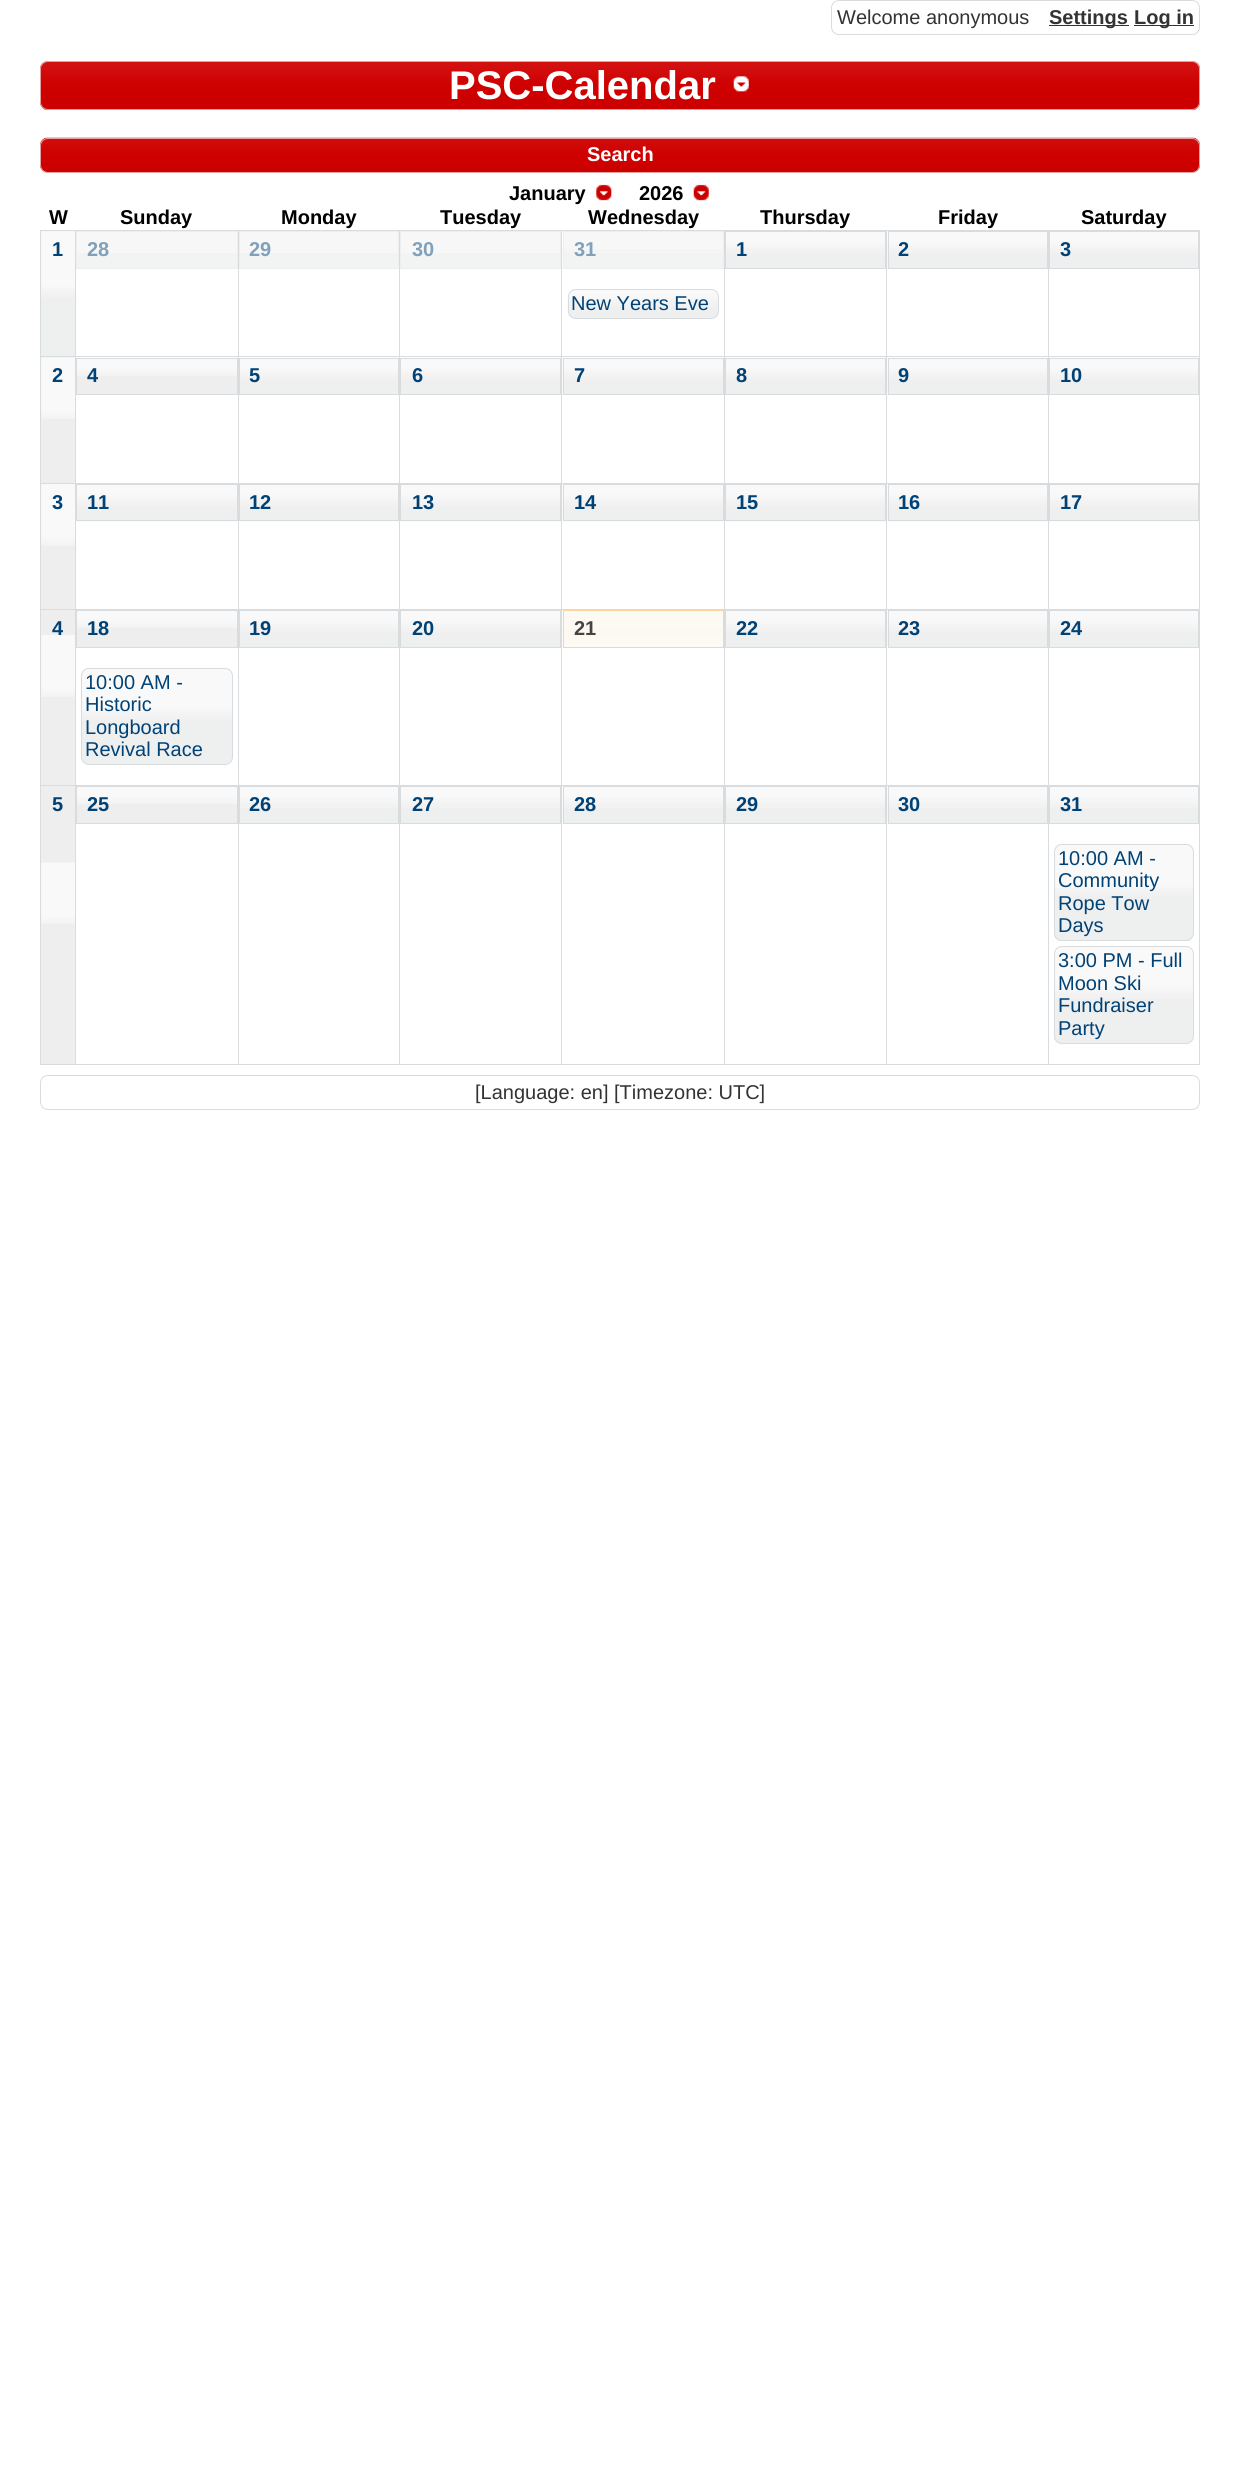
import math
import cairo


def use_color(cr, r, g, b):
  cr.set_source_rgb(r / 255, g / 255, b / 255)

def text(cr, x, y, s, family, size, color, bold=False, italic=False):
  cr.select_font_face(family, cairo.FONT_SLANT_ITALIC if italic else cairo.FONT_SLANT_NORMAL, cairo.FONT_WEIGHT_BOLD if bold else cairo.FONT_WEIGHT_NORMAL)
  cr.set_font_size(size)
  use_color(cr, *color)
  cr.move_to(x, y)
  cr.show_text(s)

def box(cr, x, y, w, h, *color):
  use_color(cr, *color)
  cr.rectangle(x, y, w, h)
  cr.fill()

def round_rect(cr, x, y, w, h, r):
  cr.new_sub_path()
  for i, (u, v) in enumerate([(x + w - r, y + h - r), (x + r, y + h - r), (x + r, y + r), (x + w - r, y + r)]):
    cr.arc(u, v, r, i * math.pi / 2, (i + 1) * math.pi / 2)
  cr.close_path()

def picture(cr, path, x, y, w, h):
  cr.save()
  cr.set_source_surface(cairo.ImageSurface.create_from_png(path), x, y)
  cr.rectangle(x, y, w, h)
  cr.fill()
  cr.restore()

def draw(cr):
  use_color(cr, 255, 255, 255)
  cr.paint()
  round_rect(cr, 831.5, 0.5, 368, 34, 7.5)
  use_color(cr, 216, 220, 223)
  cr.set_line_width(1)
  cr.stroke()
  box(cr, 1049, 25, 80, 1, 51, 51, 51)
  box(cr, 1134, 25, 60, 1, 51, 51, 51)
  picture(cr, "img_01.png", 40, 61, 1160, 49)
  round_rect(cr, 40.5, 61.5, 1159, 48, 7.5)
  use_color(cr, 227, 161, 161)
  cr.stroke()
  picture(cr, "img_02.png", 733, 76, 16, 16)
  picture(cr, "img_03.png", 40, 137, 1160, 36)
  round_rect(cr, 40.5, 138.5, 1159, 34, 7.5)
  cr.stroke()
  picture(cr, "img_04.png", 596, 184, 16, 17)
  picture(cr, "img_05.png", 693, 184, 16, 17)
  box(cr, 41, 231, 34, 125, 238, 238, 238)
  picture(cr, "img_06.png", 41, 231, 34, 125)
  box(cr, 1048, 230, 152, 1, 216, 220, 223)
  box(cr, 1048, 356, 152, 1, 216, 220, 223)
  box(cr, 1048, 483, 152, 1, 216, 220, 223)
  box(cr, 1048, 609, 152, 1, 216, 220, 223)
  box(cr, 1048, 785, 152, 1, 216, 220, 223)
  box(cr, 1199, 785, 1, 280, 216, 220, 223)
  box(cr, 1048, 1064, 152, 1, 216, 220, 223)
  box(cr, 1048, 785, 1, 280, 216, 220, 223)
  box(cr, 886, 785, 163, 1, 216, 220, 223)
  box(cr, 1048, 609, 1, 177, 216, 220, 223)
  box(cr, 886, 609, 163, 1, 216, 220, 223)
  box(cr, 1048, 483, 1, 127, 216, 220, 223)
  box(cr, 886, 483, 163, 1, 216, 220, 223)
  box(cr, 1048, 356, 1, 128, 216, 220, 223)
  box(cr, 886, 356, 163, 1, 216, 220, 223)
  box(cr, 1048, 230, 1, 128, 216, 220, 223)
  box(cr, 886, 230, 163, 1, 216, 220, 223)
  box(cr, 886, 1064, 163, 1, 216, 220, 223)
  box(cr, 886, 785, 1, 280, 216, 220, 223)
  box(cr, 724, 785, 164, 1, 216, 220, 223)
  box(cr, 886, 609, 1, 177, 216, 220, 223)
  box(cr, 724, 609, 164, 1, 216, 220, 223)
  box(cr, 886, 483, 1, 127, 216, 220, 223)
  box(cr, 724, 483, 164, 1, 216, 220, 223)
  box(cr, 886, 356, 1, 128, 216, 220, 223)
  box(cr, 724, 356, 164, 1, 216, 220, 223)
  box(cr, 886, 230, 1, 128, 216, 220, 223)
  box(cr, 724, 230, 164, 1, 216, 220, 223)
  box(cr, 724, 1064, 164, 1, 216, 220, 223)
  box(cr, 724, 785, 1, 280, 216, 220, 223)
  box(cr, 561, 785, 164, 1, 216, 220, 223)
  box(cr, 724, 609, 1, 177, 216, 220, 223)
  box(cr, 561, 609, 164, 1, 216, 220, 223)
  box(cr, 724, 483, 1, 127, 216, 220, 223)
  box(cr, 561, 483, 164, 1, 216, 220, 223)
  box(cr, 724, 356, 1, 128, 216, 220, 223)
  box(cr, 561, 356, 164, 1, 216, 220, 223)
  box(cr, 724, 230, 1, 128, 216, 220, 223)
  box(cr, 561, 230, 164, 1, 216, 220, 223)
  box(cr, 561, 1064, 164, 1, 216, 220, 223)
  box(cr, 561, 785, 1, 280, 216, 220, 223)
  box(cr, 399, 785, 164, 1, 216, 220, 223)
  box(cr, 561, 609, 1, 177, 216, 220, 223)
  box(cr, 399, 609, 164, 1, 216, 220, 223)
  box(cr, 561, 483, 1, 127, 216, 220, 223)
  box(cr, 399, 483, 164, 1, 216, 220, 223)
  box(cr, 561, 356, 1, 128, 216, 220, 223)
  box(cr, 399, 356, 164, 1, 216, 220, 223)
  box(cr, 561, 230, 1, 128, 216, 220, 223)
  box(cr, 399, 230, 164, 1, 216, 220, 223)
  box(cr, 399, 1064, 164, 1, 216, 220, 223)
  box(cr, 399, 785, 1, 280, 216, 220, 223)
  box(cr, 238, 785, 162, 1, 216, 220, 223)
  box(cr, 399, 609, 1, 177, 216, 220, 223)
  box(cr, 238, 609, 162, 1, 216, 220, 223)
  box(cr, 399, 483, 1, 127, 216, 220, 223)
  box(cr, 238, 483, 162, 1, 216, 220, 223)
  box(cr, 399, 356, 1, 128, 216, 220, 223)
  box(cr, 238, 356, 162, 1, 216, 220, 223)
  box(cr, 399, 230, 1, 128, 216, 220, 223)
  box(cr, 238, 230, 162, 1, 216, 220, 223)
  box(cr, 238, 1064, 162, 1, 216, 220, 223)
  box(cr, 238, 785, 1, 280, 216, 220, 223)
  box(cr, 75, 785, 164, 1, 216, 220, 223)
  box(cr, 238, 609, 1, 177, 216, 220, 223)
  box(cr, 75, 609, 164, 1, 216, 220, 223)
  box(cr, 238, 483, 1, 127, 216, 220, 223)
  box(cr, 75, 483, 164, 1, 216, 220, 223)
  box(cr, 238, 356, 1, 128, 216, 220, 223)
  box(cr, 75, 356, 164, 1, 216, 220, 223)
  box(cr, 238, 230, 1, 128, 216, 220, 223)
  box(cr, 75, 230, 164, 1, 216, 220, 223)
  box(cr, 75, 1064, 164, 1, 216, 220, 223)
  box(cr, 75, 785, 1, 280, 216, 220, 223)
  box(cr, 40, 785, 36, 1, 216, 220, 223)
  box(cr, 75, 609, 1, 177, 216, 220, 223)
  box(cr, 40, 609, 36, 1, 216, 220, 223)
  box(cr, 75, 483, 1, 127, 216, 220, 223)
  box(cr, 40, 483, 36, 1, 216, 220, 223)
  box(cr, 75, 356, 1, 128, 216, 220, 223)
  box(cr, 40, 356, 36, 1, 216, 220, 223)
  box(cr, 75, 230, 1, 128, 216, 220, 223)
  box(cr, 40, 230, 36, 1, 216, 220, 223)
  box(cr, 40, 1064, 36, 1, 216, 220, 223)
  box(cr, 40, 785, 1, 280, 216, 220, 223)
  box(cr, 40, 609, 1, 177, 216, 220, 223)
  box(cr, 40, 483, 1, 127, 216, 220, 223)
  box(cr, 40, 356, 1, 128, 216, 220, 223)
  box(cr, 40, 230, 1, 128, 216, 220, 223)
  box(cr, 77, 232, 160, 21, 247, 247, 247)
  box(cr, 77, 253, 160, 15, 242, 243, 243)
  cr.rectangle(76.5, 231.5, 161, 37)
  use_color(cr, 236, 238, 239)
  cr.stroke()
  box(cr, 240, 232, 158, 21, 247, 247, 247)
  box(cr, 240, 253, 158, 15, 242, 243, 243)
  cr.rectangle(239.5, 231.5, 159, 37)
  use_color(cr, 236, 238, 239)
  cr.stroke()
  box(cr, 401, 232, 159, 21, 247, 247, 247)
  box(cr, 401, 253, 159, 15, 242, 243, 243)
  cr.rectangle(400.5, 231.5, 160, 37)
  use_color(cr, 236, 238, 239)
  cr.stroke()
  box(cr, 564, 232, 159, 36, 247, 247, 247)
  picture(cr, "img_07.png", 562, 249, 161, 20)
  cr.rectangle(563.5, 231.5, 160, 37)
  use_color(cr, 236, 238, 239)
  cr.stroke()
  picture(cr, "img_08.png", 567, 289, 152, 29)
  round_rect(cr, 568.5, 289.5, 150, 29, 7.5)
  use_color(cr, 216, 220, 223)
  cr.stroke()
  picture(cr, "img_09.png", 726, 232, 159, 36)
  cr.rectangle(725.5, 231.5, 160, 37)
  cr.stroke()
  picture(cr, "img_10.png", 887, 231, 160, 38)
  cr.rectangle(888.5, 231.5, 159, 37)
  cr.stroke()
  box(cr, 1199, 609, 1, 177, 216, 220, 223)
  box(cr, 1199, 483, 1, 127, 216, 220, 223)
  box(cr, 1199, 356, 1, 128, 216, 220, 223)
  box(cr, 1199, 230, 1, 128, 216, 220, 223)
  picture(cr, "img_11.png", 1050, 232, 148, 36)
  cr.rectangle(1049.5, 231.5, 149, 37)
  cr.stroke()
  box(cr, 41, 357, 34, 126, 238, 238, 238)
  picture(cr, "img_12.png", 41, 357, 34, 62)
  box(cr, 77, 376, 160, 18, 238, 238, 238)
  picture(cr, "img_13.png", 77, 359, 160, 17)
  cr.rectangle(76.5, 358.5, 161, 36)
  use_color(cr, 216, 220, 223)
  cr.stroke()
  picture(cr, "img_14.png", 240, 359, 158, 35)
  cr.rectangle(239.5, 358.5, 159, 36)
  cr.stroke()
  picture(cr, "img_15.png", 401, 359, 159, 35)
  cr.rectangle(400.5, 358.5, 160, 36)
  cr.stroke()
  picture(cr, "img_16.png", 562, 358, 161, 37)
  cr.rectangle(563.5, 358.5, 160, 36)
  cr.stroke()
  picture(cr, "img_15.png", 726, 359, 159, 35)
  cr.rectangle(725.5, 358.5, 160, 36)
  cr.stroke()
  picture(cr, "img_17.png", 887, 358, 160, 37)
  cr.rectangle(888.5, 358.5, 159, 36)
  cr.stroke()
  picture(cr, "img_18.png", 1050, 359, 148, 35)
  cr.rectangle(1049.5, 358.5, 149, 36)
  cr.stroke()
  box(cr, 41, 484, 34, 125, 238, 238, 238)
  picture(cr, "img_19.png", 41, 484, 34, 62)
  picture(cr, "img_20.png", 76, 485, 162, 37)
  cr.rectangle(76.5, 484.5, 161, 36)
  use_color(cr, 216, 220, 223)
  cr.stroke()
  picture(cr, "img_21.png", 239, 485, 160, 37)
  cr.rectangle(239.5, 484.5, 159, 36)
  cr.stroke()
  picture(cr, "img_22.png", 400, 485, 161, 37)
  cr.rectangle(400.5, 484.5, 160, 36)
  cr.stroke()
  picture(cr, "img_23.png", 562, 484, 162, 38)
  cr.rectangle(563.5, 484.5, 160, 36)
  cr.stroke()
  picture(cr, "img_22.png", 725, 485, 161, 37)
  cr.rectangle(725.5, 484.5, 160, 36)
  cr.stroke()
  picture(cr, "img_24.png", 887, 484, 161, 38)
  cr.rectangle(888.5, 484.5, 159, 36)
  cr.stroke()
  picture(cr, "img_25.png", 1049, 485, 150, 37)
  cr.rectangle(1049.5, 484.5, 149, 36)
  cr.stroke()
  box(cr, 41, 610, 34, 175, 238, 238, 238)
  picture(cr, "img_26.png", 41, 635, 34, 62)
  box(cr, 77, 628, 160, 19, 238, 238, 238)
  picture(cr, "img_27.png", 77, 611, 160, 17)
  cr.rectangle(76.5, 610.5, 161, 37)
  use_color(cr, 216, 220, 223)
  cr.stroke()
  picture(cr, "img_28.png", 81, 668, 151, 97)
  round_rect(cr, 81.5, 668.5, 151, 96, 7.5)
  cr.stroke()
  picture(cr, "img_29.png", 240, 611, 158, 36)
  cr.rectangle(239.5, 610.5, 159, 37)
  cr.stroke()
  picture(cr, "img_30.png", 401, 611, 159, 36)
  cr.rectangle(400.5, 610.5, 160, 37)
  cr.stroke()
  picture(cr, "img_31.png", 562, 610, 161, 37)
  cr.rectangle(563.5, 610.5, 160, 37)
  use_color(cr, 252, 211, 161)
  cr.stroke()
  picture(cr, "img_30.png", 726, 611, 159, 36)
  cr.rectangle(725.5, 610.5, 160, 37)
  use_color(cr, 216, 220, 223)
  cr.stroke()
  picture(cr, "img_32.png", 887, 610, 160, 38)
  cr.rectangle(888.5, 610.5, 159, 37)
  cr.stroke()
  picture(cr, "img_33.png", 1050, 611, 148, 36)
  cr.rectangle(1049.5, 610.5, 149, 37)
  cr.stroke()
  box(cr, 41, 786, 34, 278, 238, 238, 238)
  picture(cr, "img_12.png", 41, 862, 34, 62)
  box(cr, 77, 804, 160, 19, 238, 238, 238)
  picture(cr, "img_34.png", 77, 787, 160, 17)
  cr.rectangle(76.5, 786.5, 161, 37)
  use_color(cr, 216, 220, 223)
  cr.stroke()
  picture(cr, "img_35.png", 240, 787, 158, 36)
  cr.rectangle(239.5, 786.5, 159, 37)
  cr.stroke()
  picture(cr, "img_09.png", 401, 787, 159, 36)
  cr.rectangle(400.5, 786.5, 160, 37)
  cr.stroke()
  picture(cr, "img_36.png", 562, 786, 161, 38)
  cr.rectangle(563.5, 786.5, 160, 37)
  cr.stroke()
  picture(cr, "img_09.png", 726, 787, 159, 36)
  cr.rectangle(725.5, 786.5, 160, 37)
  cr.stroke()
  picture(cr, "img_10.png", 887, 786, 160, 38)
  cr.rectangle(888.5, 786.5, 159, 37)
  cr.stroke()
  picture(cr, "img_11.png", 1050, 787, 148, 36)
  cr.rectangle(1049.5, 786.5, 149, 37)
  cr.stroke()
  picture(cr, "img_37.png", 1054, 844, 140, 97)
  round_rect(cr, 1054.5, 844.5, 139, 96, 7.5)
  cr.stroke()
  picture(cr, "img_38.png", 1054, 946, 140, 97)
  round_rect(cr, 1054.5, 946.5, 139, 97, 7.5)
  cr.stroke()
  round_rect(cr, 40.5, 1075.5, 1159, 34, 7.5)
  cr.stroke()
  text(cr, 837, 24, "Welcome anonymous", "Liberation Sans", 20, (51, 51, 51))
  text(cr, 1049, 24, "Settings", "Liberation Sans", 20, (51, 51, 51), bold=True)
  text(cr, 1134, 24, "Log in", "Liberation Sans", 20, (51, 51, 51), bold=True)
  text(cr, 449, 99, "PSC-Calendar", "Liberation Sans", 40, (255, 255, 255), bold=True)
  text(cr, 587, 161, "Search", "Liberation Sans", 20, (255, 255, 255), bold=True)
  text(cr, 509, 200, "January", "Liberation Sans", 20, (0, 0, 0), bold=True)
  text(cr, 639, 200, "2026", "Liberation Sans", 20, (0, 0, 0), bold=True)
  text(cr, 49, 224, "W", "Liberation Sans", 20, (0, 0, 0), bold=True)
  text(cr, 120, 224, "Sunday", "Liberation Sans", 20, (0, 0, 0), bold=True)
  text(cr, 281, 224, "Monday", "Liberation Sans", 20, (0, 0, 0), bold=True)
  text(cr, 440, 224, "Tuesday", "Liberation Sans", 20, (0, 0, 0), bold=True)
  text(cr, 588, 224, "Wednesday", "Liberation Sans", 20, (0, 0, 0), bold=True)
  text(cr, 760, 224, "Thursday", "Liberation Sans", 20, (0, 0, 0), bold=True)
  text(cr, 938, 224, "Friday", "Liberation Sans", 20, (0, 0, 0), bold=True)
  text(cr, 1081, 224, "Saturday", "Liberation Sans", 20, (0, 0, 0), bold=True)
  text(cr, 52, 256, "1", "Liberation Sans", 20, (0, 66, 118), bold=True)
  text(cr, 87, 256, "28", "Liberation Sans", 20, (128, 161, 187), bold=True)
  text(cr, 249, 256, "29", "Liberation Sans", 20, (128, 161, 187), bold=True)
  text(cr, 412, 256, "30", "Liberation Sans", 20, (128, 161, 187), bold=True)
  text(cr, 574, 256, "31", "Liberation Sans", 20, (128, 161, 187), bold=True)
  text(cr, 571, 310, "New Years Eve", "Liberation Sans", 20, (0, 66, 118))
  text(cr, 736, 256, "1", "Liberation Sans", 20, (0, 66, 118), bold=True)
  text(cr, 898, 256, "2", "Liberation Sans", 20, (0, 66, 118), bold=True)
  text(cr, 1060, 256, "3", "Liberation Sans", 20, (0, 66, 118), bold=True)
  text(cr, 52, 382, "2", "Liberation Sans", 20, (0, 66, 118), bold=True)
  text(cr, 87, 382, "4", "Liberation Sans", 20, (0, 66, 118), bold=True)
  text(cr, 249, 382, "5", "Liberation Sans", 20, (0, 66, 118), bold=True)
  text(cr, 412, 382, "6", "Liberation Sans", 20, (0, 66, 118), bold=True)
  text(cr, 574, 382, "7", "Liberation Sans", 20, (0, 66, 118), bold=True)
  text(cr, 736, 382, "8", "Liberation Sans", 20, (0, 66, 118), bold=True)
  text(cr, 898, 382, "9", "Liberation Sans", 20, (0, 66, 118), bold=True)
  text(cr, 1060, 382, "10", "Liberation Sans", 20, (0, 66, 118), bold=True)
  text(cr, 52, 509, "3", "Liberation Sans", 20, (0, 66, 118), bold=True)
  text(cr, 87, 509, "11", "Liberation Sans", 20, (0, 66, 118), bold=True)
  text(cr, 249, 509, "12", "Liberation Sans", 20, (0, 66, 118), bold=True)
  text(cr, 412, 509, "13", "Liberation Sans", 20, (0, 66, 118), bold=True)
  text(cr, 574, 509, "14", "Liberation Sans", 20, (0, 66, 118), bold=True)
  text(cr, 736, 509, "15", "Liberation Sans", 20, (0, 66, 118), bold=True)
  text(cr, 898, 509, "16", "Liberation Sans", 20, (0, 66, 118), bold=True)
  text(cr, 1060, 509, "17", "Liberation Sans", 20, (0, 66, 118), bold=True)
  text(cr, 52, 635, "4", "Liberation Sans", 20, (0, 66, 118), bold=True)
  text(cr, 87, 635, "18", "Liberation Sans", 20, (0, 66, 118), bold=True)
  text(cr, 85, 689, "10:00 AM -", "Liberation Sans", 20, (0, 66, 118))
  text(cr, 85, 711, "Historic", "Liberation Sans", 20, (0, 66, 118))
  text(cr, 85, 734, "Longboard", "Liberation Sans", 20, (0, 66, 118))
  text(cr, 85, 756, "Revival Race", "Liberation Sans", 20, (0, 66, 118))
  text(cr, 249, 635, "19", "Liberation Sans", 20, (0, 66, 118), bold=True)
  text(cr, 412, 635, "20", "Liberation Sans", 20, (0, 66, 118), bold=True)
  text(cr, 574, 635, "21", "Liberation Sans", 20, (68, 68, 68), bold=True)
  text(cr, 736, 635, "22", "Liberation Sans", 20, (0, 66, 118), bold=True)
  text(cr, 898, 635, "23", "Liberation Sans", 20, (0, 66, 118), bold=True)
  text(cr, 1060, 635, "24", "Liberation Sans", 20, (0, 66, 118), bold=True)
  text(cr, 52, 811, "5", "Liberation Sans", 20, (0, 66, 118), bold=True)
  text(cr, 87, 811, "25", "Liberation Sans", 20, (0, 66, 118), bold=True)
  text(cr, 249, 811, "26", "Liberation Sans", 20, (0, 66, 118), bold=True)
  text(cr, 412, 811, "27", "Liberation Sans", 20, (0, 66, 118), bold=True)
  text(cr, 574, 811, "28", "Liberation Sans", 20, (0, 66, 118), bold=True)
  text(cr, 736, 811, "29", "Liberation Sans", 20, (0, 66, 118), bold=True)
  text(cr, 898, 811, "30", "Liberation Sans", 20, (0, 66, 118), bold=True)
  text(cr, 1060, 811, "31", "Liberation Sans", 20, (0, 66, 118), bold=True)
  text(cr, 1058, 865, "10:00 AM -", "Liberation Sans", 20, (0, 66, 118))
  text(cr, 1058, 887, "Community", "Liberation Sans", 20, (0, 66, 118))
  text(cr, 1058, 910, "Rope Tow", "Liberation Sans", 20, (0, 66, 118))
  text(cr, 1058, 932, "Days", "Liberation Sans", 20, (0, 66, 118))
  text(cr, 1058, 967, "3:00 PM - Full", "Liberation Sans", 20, (0, 66, 118))
  text(cr, 1058, 990, "Moon Ski", "Liberation Sans", 20, (0, 66, 118))
  text(cr, 1058, 1012, "Fundraiser", "Liberation Sans", 20, (0, 66, 118))
  text(cr, 1058, 1035, "Party", "Liberation Sans", 20, (0, 66, 118))
  text(cr, 475, 1099, "[Language: en] [Timezone: UTC]", "Liberation Sans", 20, (51, 51, 51))


surface = cairo.ImageSurface(cairo.FORMAT_RGB24, 1239, 2483)
cr = cairo.Context(surface)
options = cairo.FontOptions()
options.set_hint_metrics(cairo.HINT_METRICS_OFF)
options.set_hint_style(cairo.HINT_STYLE_NONE)
cr.set_font_options(options)
cr.set_miter_limit(4)
draw(cr)
surface.write_to_png("out.png")
